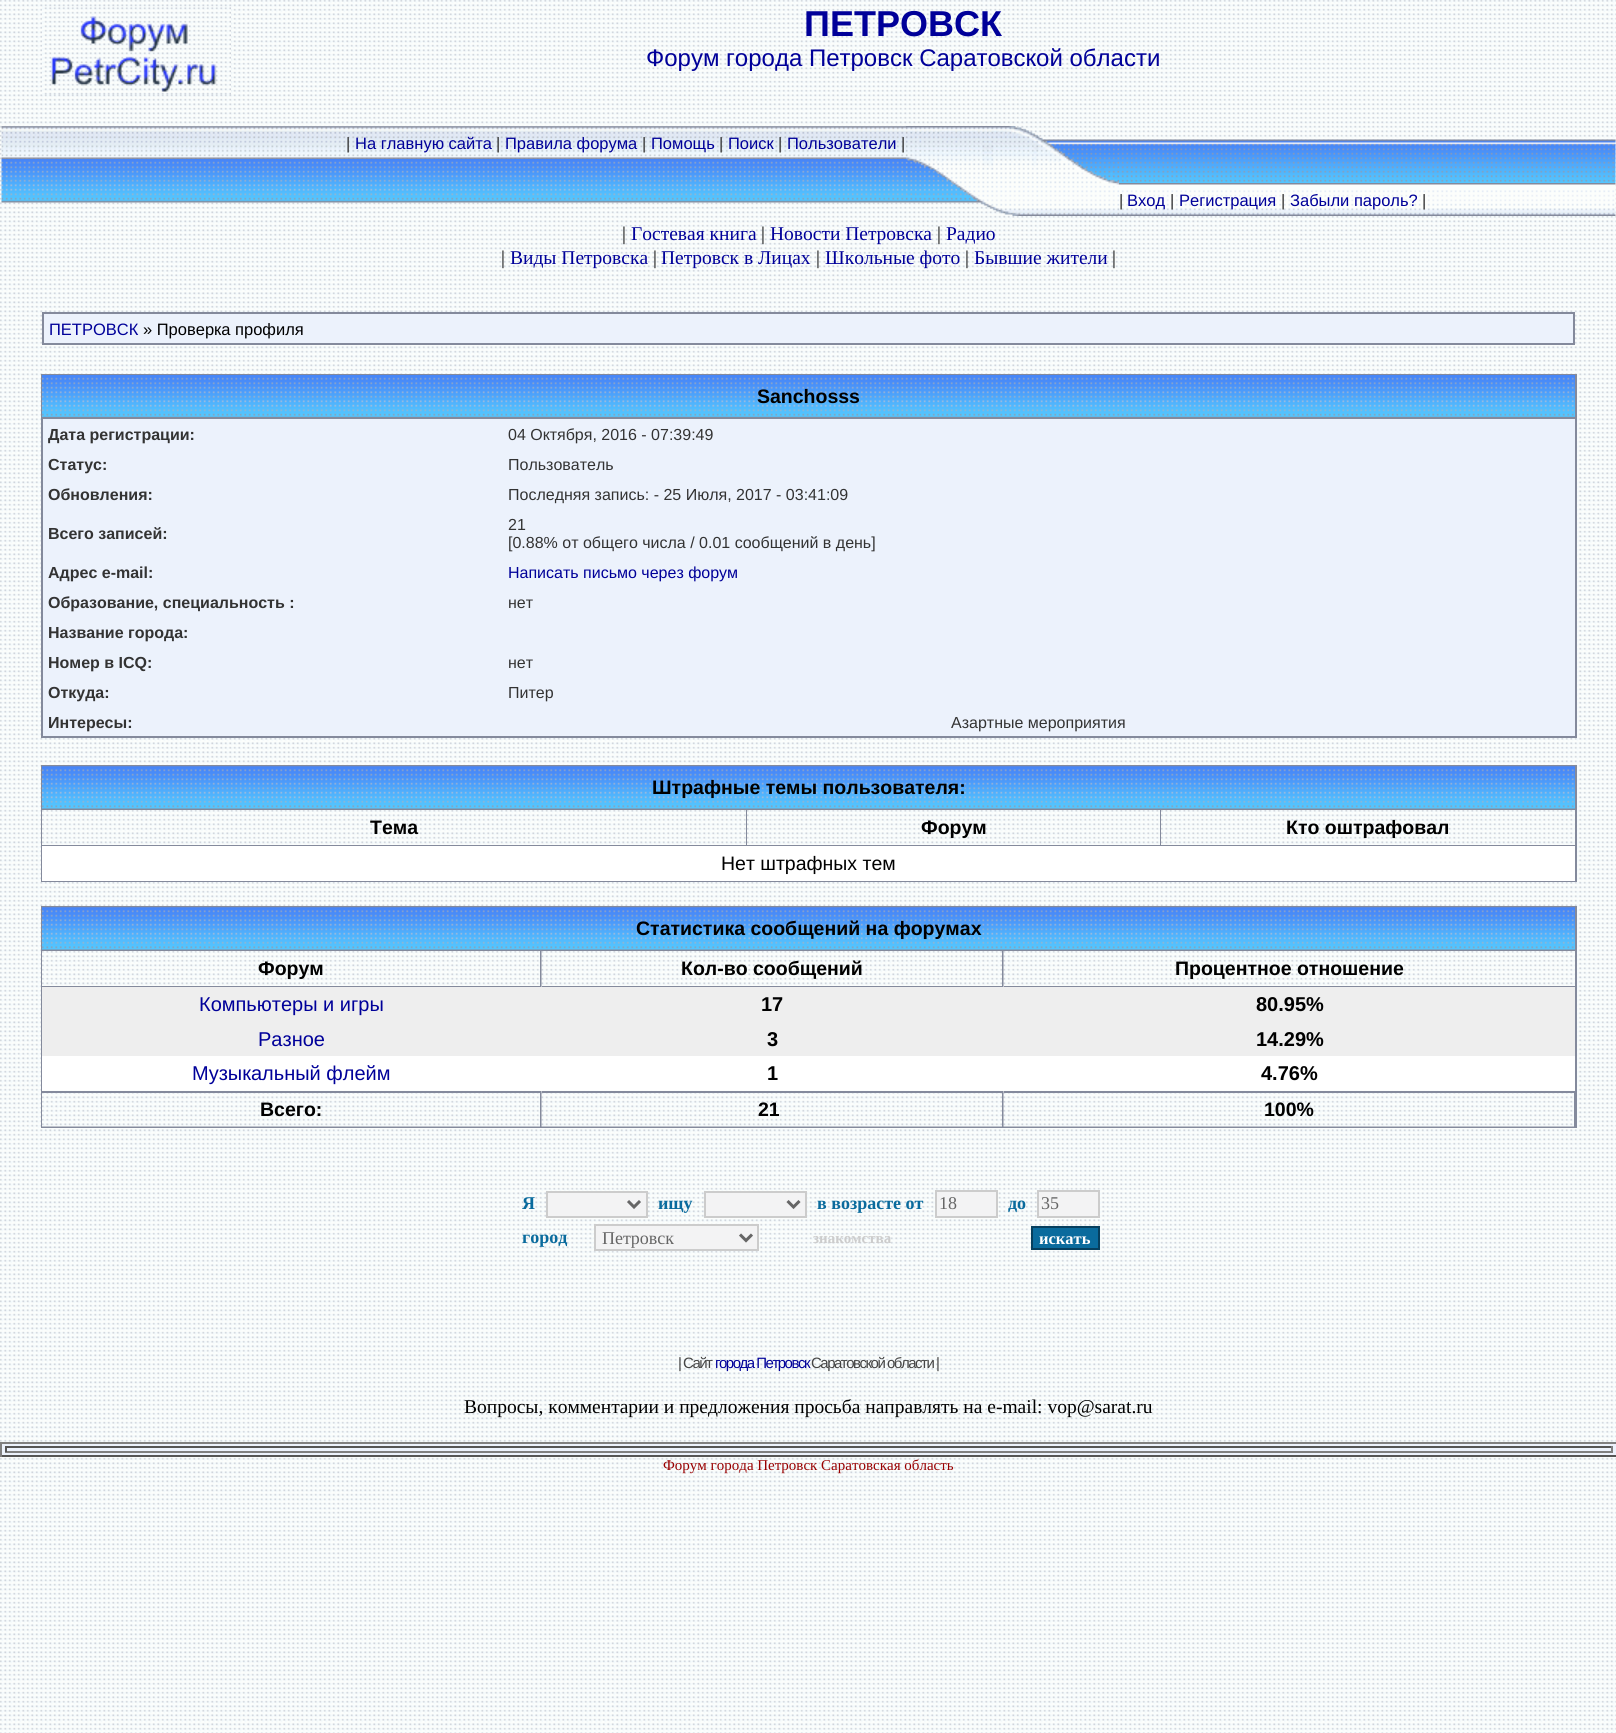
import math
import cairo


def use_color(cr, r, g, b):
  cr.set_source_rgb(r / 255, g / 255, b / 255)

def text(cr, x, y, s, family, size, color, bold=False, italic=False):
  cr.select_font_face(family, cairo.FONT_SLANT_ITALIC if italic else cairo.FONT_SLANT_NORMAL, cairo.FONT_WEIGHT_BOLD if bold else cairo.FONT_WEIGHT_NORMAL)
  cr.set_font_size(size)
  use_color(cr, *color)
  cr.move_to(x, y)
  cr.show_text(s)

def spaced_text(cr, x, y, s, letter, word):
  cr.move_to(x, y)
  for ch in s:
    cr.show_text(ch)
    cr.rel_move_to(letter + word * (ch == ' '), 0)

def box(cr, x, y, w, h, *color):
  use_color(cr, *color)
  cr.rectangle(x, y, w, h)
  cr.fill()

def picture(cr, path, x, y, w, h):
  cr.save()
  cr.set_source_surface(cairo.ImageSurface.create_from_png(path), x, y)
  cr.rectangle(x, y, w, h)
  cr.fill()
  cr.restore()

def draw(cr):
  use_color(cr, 255, 255, 255)
  cr.paint()
  picture(cr, "img_01.png", 0, 0, 1616, 1733)
  picture(cr, "img_02.png", 42, 7, 189, 88)
  picture(cr, "img_03.png", 1, 126, 905, 33)
  picture(cr, "img_04.png", 1, 159, 905, 44)
  picture(cr, "img_05.png", 906, 126, 213, 90)
  picture(cr, "img_06.png", 1119, 139, 497, 44)
  picture(cr, "img_07.png", 1119, 183, 497, 33)
  use_color(cr, 236, 242, 252)
  cr.rectangle(43, 313, 1531, 31)
  cr.fill_preserve()
  use_color(cr, 132, 138, 156)
  cr.stroke()
  box(cr, 43, 419, 1532, 317, 236, 242, 252)
  cr.rectangle(42, 375, 1534, 362)
  use_color(cr, 132, 138, 156)
  cr.stroke()
  box(cr, 42, 375, 1533, 2, 72, 135, 247)
  picture(cr, "img_08.png", 42, 377, 1533, 40)
  box(cr, 42, 417, 1533, 2, 132, 138, 156)
  cr.rectangle(42, 766, 1534, 115)
  cr.stroke()
  picture(cr, "img_09.png", 42, 766, 1533, 43)
  box(cr, 42, 809, 1533, 1, 132, 138, 156)
  picture(cr, "img_10.png", 42, 810, 704, 35)
  box(cr, 746, 810, 1, 36, 132, 138, 156)
  box(cr, 42, 845, 705, 1, 132, 138, 156)
  picture(cr, "img_11.png", 747, 810, 413, 35)
  box(cr, 1160, 810, 1, 36, 132, 138, 156)
  box(cr, 747, 845, 828, 1, 132, 138, 156)
  picture(cr, "img_12.png", 1161, 810, 414, 35)
  box(cr, 42, 846, 1533, 35, 255, 255, 255)
  cr.rectangle(42, 907, 1534, 220)
  use_color(cr, 132, 138, 156)
  cr.stroke()
  picture(cr, "img_13.png", 42, 907, 1533, 43)
  box(cr, 42, 950, 1533, 1, 132, 138, 156)
  picture(cr, "img_14.png", 42, 951, 498, 35)
  box(cr, 540, 951, 2, 36, 132, 138, 156)
  box(cr, 42, 986, 500, 1, 132, 138, 156)
  picture(cr, "img_15.png", 541, 951, 461, 36)
  box(cr, 1002, 951, 2, 36, 132, 138, 156)
  box(cr, 542, 986, 462, 1, 132, 138, 156)
  picture(cr, "img_16.png", 1003, 951, 572, 36)
  box(cr, 1004, 986, 571, 1, 132, 138, 156)
  box(cr, 42, 987, 1533, 35, 238, 238, 238)
  box(cr, 42, 1022, 1533, 34, 238, 238, 238)
  box(cr, 42, 1056, 1533, 35, 255, 255, 255)
  picture(cr, "img_17.png", 42, 1090, 500, 37)
  box(cr, 42, 1091, 500, 2, 132, 138, 156)
  box(cr, 540, 1091, 2, 36, 132, 138, 156)
  picture(cr, "img_18.png", 541, 1090, 463, 37)
  box(cr, 542, 1091, 462, 2, 132, 138, 156)
  box(cr, 1002, 1091, 2, 36, 132, 138, 156)
  picture(cr, "img_19.png", 1003, 1090, 572, 37)
  box(cr, 1004, 1091, 571, 2, 132, 138, 156)
  box(cr, 1574, 1091, 1, 36, 132, 138, 156)
  use_color(cr, 243, 243, 244)
  cr.rectangle(547, 1192, 100, 25)
  cr.fill_preserve()
  use_color(cr, 204, 204, 204)
  cr.stroke()
  cr.new_path()
  cr.move_to(628, 1201)
  cr.line_to(634, 1207)
  cr.line_to(640, 1201)
  use_color(cr, 102, 102, 102)
  cr.set_line_width(3)
  cr.stroke()
  use_color(cr, 243, 243, 244)
  cr.rectangle(705, 1192, 101, 25)
  cr.fill_preserve()
  use_color(cr, 204, 204, 204)
  cr.set_line_width(2)
  cr.stroke()
  cr.new_path()
  cr.move_to(787.5, 1201)
  cr.line_to(793.5, 1207)
  cr.line_to(799.5, 1201)
  use_color(cr, 102, 102, 102)
  cr.set_line_width(3)
  cr.stroke()
  use_color(cr, 243, 243, 244)
  cr.rectangle(936, 1191, 61, 26)
  cr.fill_preserve()
  use_color(cr, 204, 204, 204)
  cr.set_line_width(2)
  cr.stroke()
  use_color(cr, 243, 243, 244)
  cr.rectangle(1038, 1191, 61, 26)
  cr.fill_preserve()
  use_color(cr, 204, 204, 204)
  cr.stroke()
  use_color(cr, 243, 243, 244)
  cr.rectangle(595, 1225, 163, 25)
  cr.fill_preserve()
  use_color(cr, 204, 204, 204)
  cr.stroke()
  cr.new_path()
  cr.move_to(740, 1234.5)
  cr.line_to(746, 1240.5)
  cr.line_to(752, 1234.5)
  use_color(cr, 102, 102, 102)
  cr.set_line_width(3)
  cr.stroke()
  use_color(cr, 10, 107, 157)
  cr.rectangle(1032, 1227, 67, 22)
  cr.fill_preserve()
  use_color(cr, 6, 63, 94)
  cr.set_line_width(2)
  cr.stroke()
  box(cr, 2, 1444, 1614, 11, 236, 242, 252)
  box(cr, 0, 1442, 1616, 2, 128, 128, 128)
  box(cr, 0, 1455, 1616, 2, 85, 85, 85)
  box(cr, 0, 1442, 2, 15, 128, 128, 128)
  box(cr, 5, 1446, 1608, 2, 85, 85, 85)
  box(cr, 1611, 1446, 2, 6, 128, 128, 128)
  box(cr, 5, 1451, 1608, 2, 128, 128, 128)
  box(cr, 5, 1446, 2, 6, 85, 85, 85)
  text(cr, 804, 36, "ПЕТРОВСК", "Liberation Sans", 36, (0, 0, 153), bold=True)
  text(cr, 646, 66, "Форум города Петровск Саратовской области", "Liberation Sans", 24, (0, 0, 153))
  text(cr, 346, 149, "|", "Liberation Sans", 16.5, (51, 51, 51))
  text(cr, 355, 149, "На главную сайта", "Liberation Sans", 16.5, (0, 0, 153))
  text(cr, 496, 149, "|", "Liberation Sans", 16.5, (51, 51, 51))
  text(cr, 505, 149, "Правила форума", "Liberation Sans", 16.5, (0, 0, 153))
  text(cr, 642, 149, "|", "Liberation Sans", 16.5, (51, 51, 51))
  text(cr, 651, 149, "Помощь", "Liberation Sans", 16.5, (0, 0, 153))
  text(cr, 719, 149, "|", "Liberation Sans", 16.5, (51, 51, 51))
  text(cr, 728, 149, "Поиск", "Liberation Sans", 16.5, (0, 0, 153))
  text(cr, 778, 149, "|", "Liberation Sans", 16.5, (51, 51, 51))
  text(cr, 787, 149, "Пользователи", "Liberation Sans", 16.5, (0, 0, 153))
  text(cr, 901, 149, "|", "Liberation Sans", 16.5, (51, 51, 51))
  text(cr, 1119, 206, "|", "Liberation Sans", 16.5, (51, 51, 51))
  text(cr, 1127, 206, "Вход", "Liberation Sans", 16.5, (0, 0, 153))
  text(cr, 1170, 206, "|", "Liberation Sans", 16.5, (51, 51, 51))
  text(cr, 1179, 206, "Регистрация", "Liberation Sans", 16.5, (0, 0, 153))
  text(cr, 1281, 206, "|", "Liberation Sans", 16.5, (51, 51, 51))
  text(cr, 1290, 206, "Забыли пароль?", "Liberation Sans", 16.5, (0, 0, 153))
  text(cr, 1422, 206, "|", "Liberation Sans", 16.5, (51, 51, 51))
  text(cr, 622, 240, "|", "Liberation Serif", 19.5, (0, 0, 0))
  text(cr, 631, 240, "Гостевая книга", "Liberation Serif", 19.5, (0, 0, 153))
  text(cr, 761, 240, "|", "Liberation Serif", 19.5, (0, 0, 0))
  text(cr, 770, 240, "Новости Петровска", "Liberation Serif", 19.5, (0, 0, 153))
  text(cr, 937, 240, "|", "Liberation Serif", 19.5, (0, 0, 0))
  text(cr, 946, 240, "Радио", "Liberation Serif", 19.5, (0, 0, 153))
  text(cr, 501, 264, "|", "Liberation Serif", 19.5, (0, 0, 0))
  text(cr, 510, 264, "Виды Петровска", "Liberation Serif", 19.5, (0, 0, 153))
  text(cr, 653, 264, "|", "Liberation Serif", 19.5, (0, 0, 0))
  text(cr, 661, 264, "Петровск в Лицах", "Liberation Serif", 19.5, (0, 0, 153))
  text(cr, 816, 264, "|", "Liberation Serif", 19.5, (0, 0, 0))
  text(cr, 825, 264, "Школьные фото", "Liberation Serif", 19.5, (0, 0, 153))
  text(cr, 965, 264, "|", "Liberation Serif", 19.5, (0, 0, 0))
  text(cr, 974, 264, "Бывшие жители", "Liberation Serif", 19.5, (0, 0, 153))
  text(cr, 1112, 264, "|", "Liberation Serif", 19.5, (0, 0, 0))
  text(cr, 49, 335, "ПЕТРОВСК", "Liberation Sans", 16.5, (0, 0, 153))
  text(cr, 143, 335, "» Проверка профиля", "Liberation Sans", 16.5, (0, 0, 0))
  text(cr, 757, 403, "Sanchosss", "Liberation Sans", 19.5, (0, 0, 0), bold=True)
  text(cr, 48, 440, "Дата регистрации:", "Liberation Sans", 16, (51, 51, 51), bold=True)
  text(cr, 508, 440, "04 Октября, 2016 - 07:39:49", "Liberation Sans", 16, (51, 51, 51))
  text(cr, 48, 470, "Статус:", "Liberation Sans", 16, (51, 51, 51), bold=True)
  text(cr, 508, 470, "Пользователь", "Liberation Sans", 16, (51, 51, 51))
  text(cr, 48, 500, "Обновления:", "Liberation Sans", 16, (51, 51, 51), bold=True)
  text(cr, 508, 500, "Последняя запись: - 25 Июля, 2017 - 03:41:09", "Liberation Sans", 16, (51, 51, 51))
  text(cr, 48, 539, "Всего записей:", "Liberation Sans", 16, (51, 51, 51), bold=True)
  text(cr, 508, 530, "21", "Liberation Sans", 16, (51, 51, 51))
  text(cr, 508, 548, "[0.88% от общего числа / 0.01 сообщений в день]", "Liberation Sans", 16, (51, 51, 51))
  text(cr, 48, 578, "Адрес e-mail:", "Liberation Sans", 16, (51, 51, 51), bold=True)
  text(cr, 508, 578, "Написать письмо через форум", "Liberation Sans", 16, (0, 0, 153))
  text(cr, 48, 608, "Образование, специальность :", "Liberation Sans", 16, (51, 51, 51), bold=True)
  text(cr, 508, 608, "нет", "Liberation Sans", 16, (51, 51, 51))
  text(cr, 48, 638, "Название города:", "Liberation Sans", 16, (51, 51, 51), bold=True)
  text(cr, 48, 668, "Номер в ICQ:", "Liberation Sans", 16, (51, 51, 51), bold=True)
  text(cr, 508, 668, "нет", "Liberation Sans", 16, (51, 51, 51))
  text(cr, 48, 698, "Откуда:", "Liberation Sans", 16, (51, 51, 51), bold=True)
  text(cr, 508, 698, "Питер", "Liberation Sans", 16, (51, 51, 51))
  text(cr, 48, 728, "Интересы:", "Liberation Sans", 16, (51, 51, 51), bold=True)
  text(cr, 951, 728, "Азартные мероприятия", "Liberation Sans", 16, (51, 51, 51))
  text(cr, 652, 794, "Штрафные темы пользователя:", "Liberation Sans", 19.5, (0, 0, 0), bold=True)
  text(cr, 370, 834, "Тема", "Liberation Sans", 19.5, (0, 0, 0), bold=True)
  text(cr, 921, 834, "Форум", "Liberation Sans", 19.5, (0, 0, 0), bold=True)
  text(cr, 1286, 834, "Кто оштрафовал", "Liberation Sans", 19.5, (0, 0, 0), bold=True)
  text(cr, 721, 870, "Нет штрафных тем", "Liberation Sans", 19.5, (0, 0, 0))
  text(cr, 636, 935, "Статистика сообщений на форумах", "Liberation Sans", 19.5, (0, 0, 0), bold=True)
  text(cr, 258, 975, "Форум", "Liberation Sans", 19.5, (0, 0, 0), bold=True)
  text(cr, 681, 975, "Кол-во сообщений", "Liberation Sans", 19.5, (0, 0, 0), bold=True)
  text(cr, 1175, 975, "Процентное отношение", "Liberation Sans", 19.5, (0, 0, 0), bold=True)
  text(cr, 199, 1011, "Компьютеры и игры", "Liberation Sans", 20, (0, 0, 153))
  text(cr, 761, 1011, "17", "Liberation Sans", 20, (0, 0, 0), bold=True)
  text(cr, 1256, 1011, "80.95%", "Liberation Sans", 20, (0, 0, 0), bold=True)
  text(cr, 258, 1046, "Разное", "Liberation Sans", 20, (0, 0, 153))
  text(cr, 767, 1046, "3", "Liberation Sans", 20, (0, 0, 0), bold=True)
  text(cr, 1256, 1046, "14.29%", "Liberation Sans", 20, (0, 0, 0), bold=True)
  text(cr, 192, 1080, "Музыкальный флейм", "Liberation Sans", 20, (0, 0, 153))
  text(cr, 767, 1080, "1", "Liberation Sans", 20, (0, 0, 0), bold=True)
  text(cr, 1261, 1080, "4.76%", "Liberation Sans", 20, (0, 0, 0), bold=True)
  text(cr, 260, 1116, "Всего:", "Liberation Sans", 19.5, (0, 0, 0), bold=True)
  text(cr, 758, 1116, "21", "Liberation Sans", 19.5, (0, 0, 0), bold=True)
  text(cr, 1264, 1116, "100%", "Liberation Sans", 19.5, (0, 0, 0), bold=True)
  text(cr, 522, 1209, "Я", "Liberation Serif", 18, (10, 107, 157), bold=True)
  text(cr, 658, 1209, "ищу", "Liberation Serif", 18, (10, 107, 157), bold=True)
  text(cr, 817, 1209, "в возрасте от", "Liberation Serif", 18, (10, 107, 157), bold=True)
  text(cr, 939, 1209, "18", "Liberation Serif", 18, (102, 102, 102))
  text(cr, 1008, 1209, "до", "Liberation Serif", 18, (10, 107, 157), bold=True)
  text(cr, 1041, 1209, "35", "Liberation Serif", 18, (102, 102, 102))
  text(cr, 522, 1243, "город", "Liberation Serif", 18, (10, 107, 157), bold=True)
  text(cr, 602, 1244, "Петровск", "Liberation Serif", 18, (102, 102, 102))
  text(cr, 813, 1243, "знакомства", "Liberation Serif", 15, (204, 204, 204), bold=True)
  text(cr, 1039, 1244, "искать", "Liberation Serif", 16.5, (255, 255, 255), bold=True)
  cr.select_font_face("Liberation Sans")
  cr.set_font_size(15)
  use_color(cr, 68, 68, 68)
  spaced_text(cr, 678, 1368, "| Сайт", -1.5, 0)
  use_color(cr, 0, 0, 153)
  spaced_text(cr, 715, 1368, "города Петровск", -1.5, 0)
  use_color(cr, 68, 68, 68)
  spaced_text(cr, 811, 1368, "Саратовской области |", -1.5, 0)
  text(cr, 464, 1413, "Вопросы, комментарии и предложения просьба направлять на e-mail: vop@sarat.ru", "Liberation Serif", 19.5, (0, 0, 0))
  text(cr, 663, 1470, "Форум города Петровск Саратовская область", "Liberation Serif", 15, (153, 0, 0))


surface = cairo.ImageSurface(cairo.FORMAT_RGB24, 1616, 1733)
cr = cairo.Context(surface)
options = cairo.FontOptions()
options.set_hint_metrics(cairo.HINT_METRICS_OFF)
options.set_hint_style(cairo.HINT_STYLE_NONE)
cr.set_font_options(options)
cr.set_miter_limit(4)
draw(cr)
surface.write_to_png("out.png")
